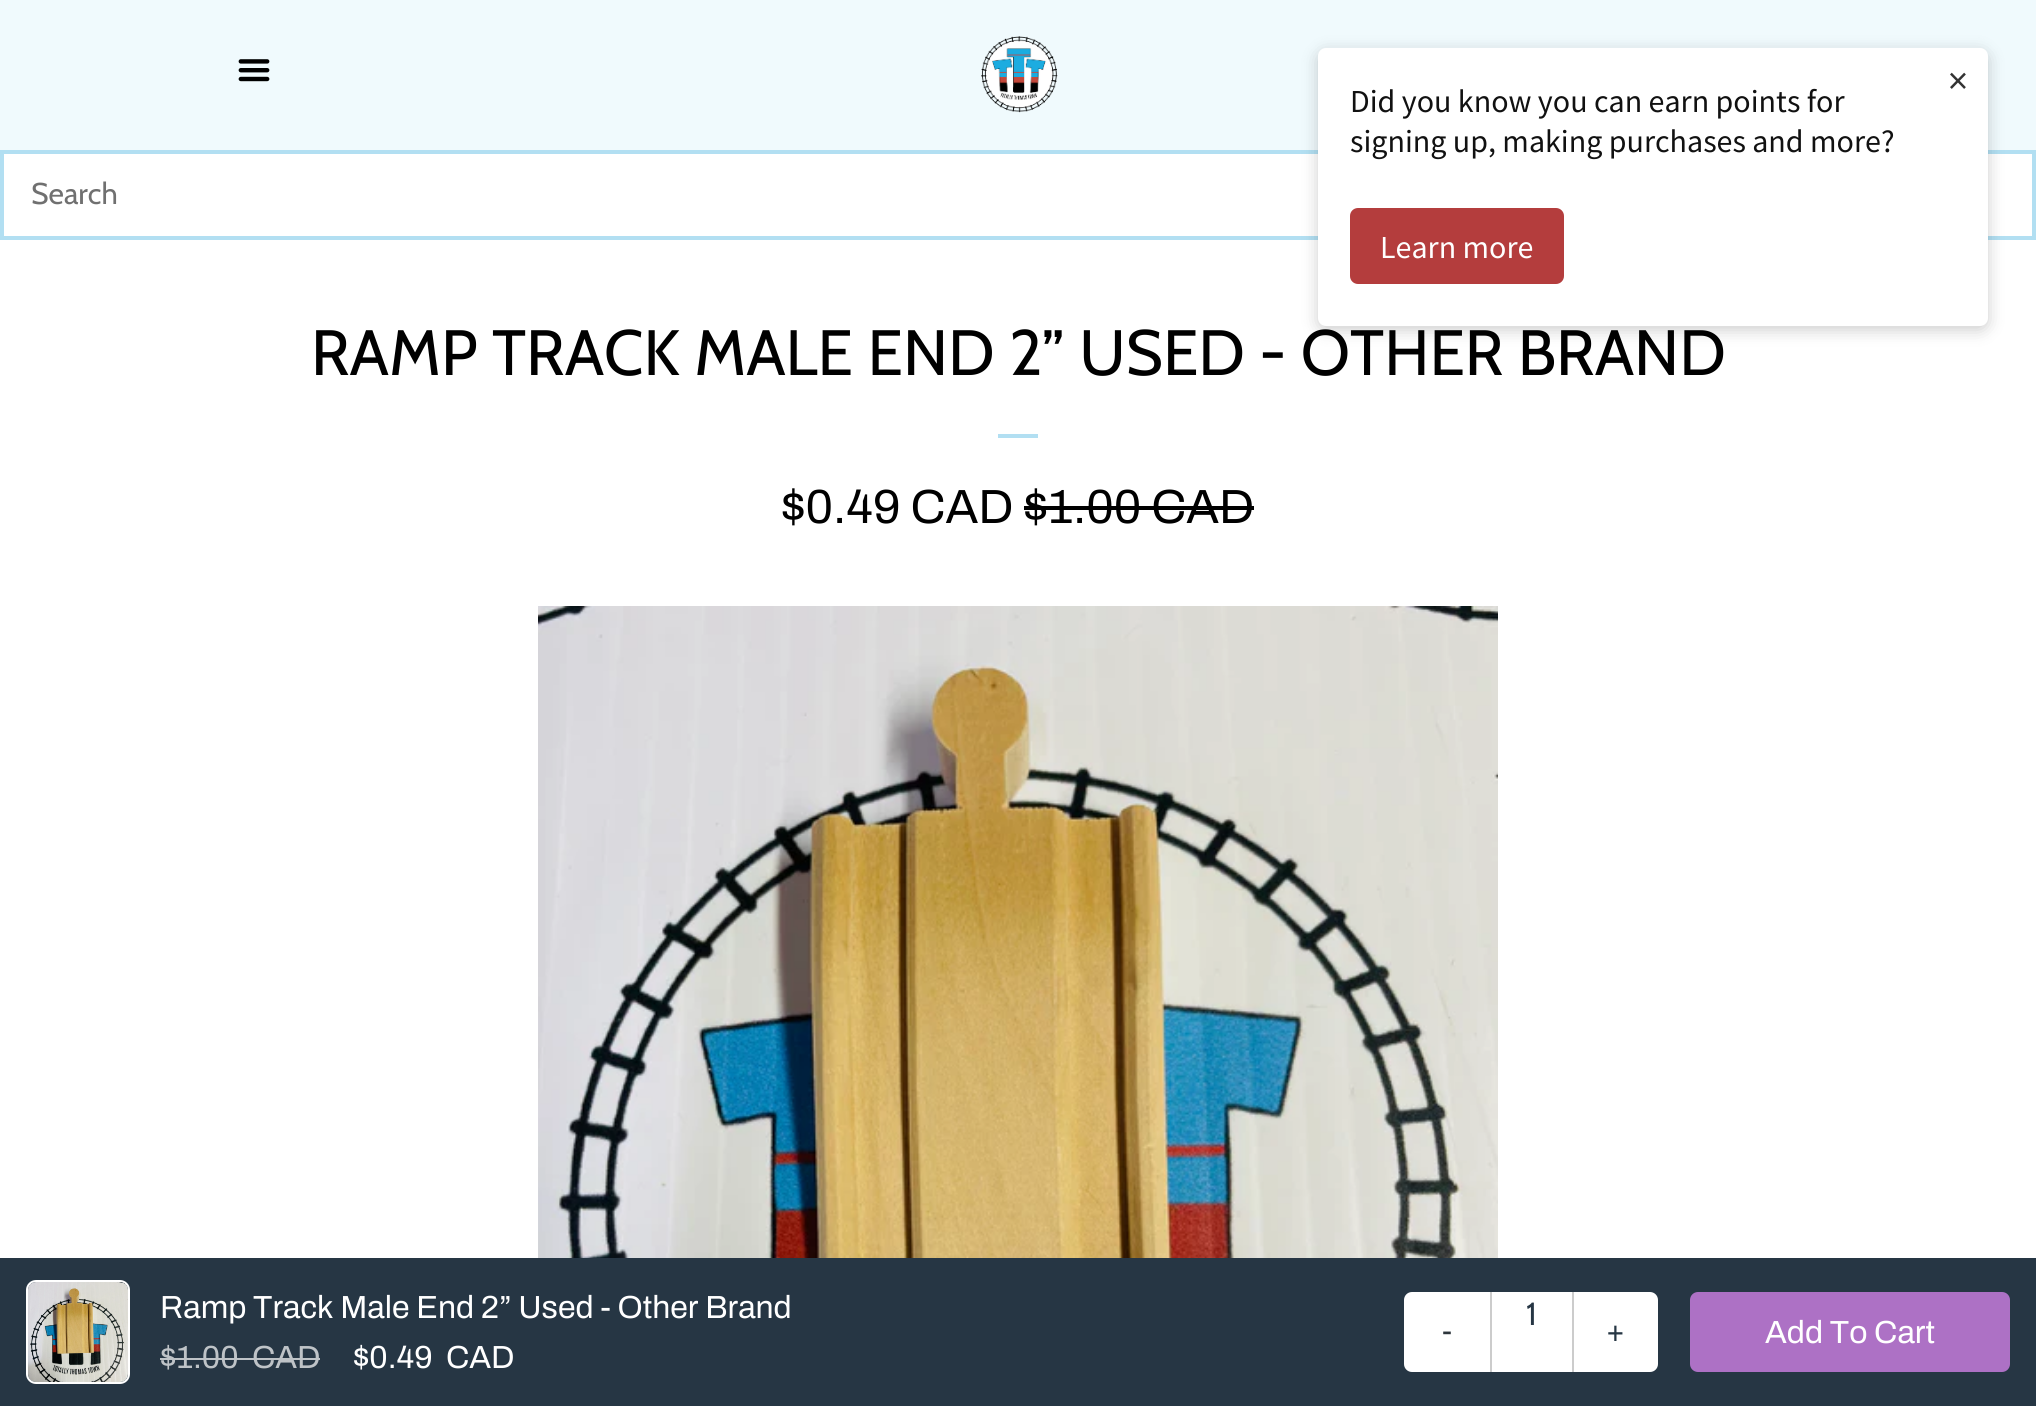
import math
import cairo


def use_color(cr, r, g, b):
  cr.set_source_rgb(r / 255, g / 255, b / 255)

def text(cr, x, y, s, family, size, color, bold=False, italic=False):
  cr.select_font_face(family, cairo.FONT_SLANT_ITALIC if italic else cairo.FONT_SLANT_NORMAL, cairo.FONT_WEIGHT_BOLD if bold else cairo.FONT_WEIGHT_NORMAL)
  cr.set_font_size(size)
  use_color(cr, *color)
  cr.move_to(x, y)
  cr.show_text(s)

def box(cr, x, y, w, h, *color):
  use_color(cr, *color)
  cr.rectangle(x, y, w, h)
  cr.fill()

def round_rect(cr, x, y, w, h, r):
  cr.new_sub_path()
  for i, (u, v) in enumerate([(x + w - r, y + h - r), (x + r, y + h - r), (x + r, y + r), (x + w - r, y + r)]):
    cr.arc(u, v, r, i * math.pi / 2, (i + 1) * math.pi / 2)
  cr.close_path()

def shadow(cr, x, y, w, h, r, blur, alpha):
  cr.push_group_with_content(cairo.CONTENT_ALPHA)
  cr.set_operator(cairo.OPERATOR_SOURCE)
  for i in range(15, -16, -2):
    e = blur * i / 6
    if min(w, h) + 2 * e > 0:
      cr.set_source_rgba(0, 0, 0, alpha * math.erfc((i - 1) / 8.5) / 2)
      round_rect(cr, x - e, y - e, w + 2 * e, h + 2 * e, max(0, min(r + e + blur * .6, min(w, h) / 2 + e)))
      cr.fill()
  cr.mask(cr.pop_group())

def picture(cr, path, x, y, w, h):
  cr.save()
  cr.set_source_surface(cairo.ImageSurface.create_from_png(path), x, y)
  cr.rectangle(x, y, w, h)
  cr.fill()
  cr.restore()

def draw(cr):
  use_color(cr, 240, 250, 253)
  cr.paint()
  picture(cr, "img_01.png", 238, 59, 32, 23)
  picture(cr, "img_02.png", 981, 36, 77, 77)
  box(cr, 0, 154, 2036, 1104, 255, 255, 255)
  cr.rectangle(2, 152, 2032, 86)
  use_color(cr, 178, 223, 242)
  cr.set_line_width(4)
  cr.stroke()
  use_color(cr, 0, 0, 0)
  shadow(cr, 1318, 52, 670, 278, 8, 8, 0.2)
  use_color(cr, 255, 255, 255)
  round_rect(cr, 1318, 48, 670, 278, 8)
  cr.fill()
  use_color(cr, 180, 61, 61)
  round_rect(cr, 1350, 208, 214, 76, 8)
  cr.fill()
  box(cr, 998, 434, 40, 4, 178, 223, 242)
  box(cr, 1024, 506, 230, 4, 0, 0, 0)
  picture(cr, "img_03.png", 538, 606, 960, 652)
  box(cr, 0, 1258, 2036, 148, 38, 54, 68)
  picture(cr, "img_04.png", 28, 1282, 100, 100)
  round_rect(cr, 27, 1281, 102, 102, 9)
  use_color(cr, 255, 255, 255)
  cr.set_line_width(2)
  cr.stroke()
  box(cr, 160, 1358, 78, 2, 190, 195, 199)
  box(cr, 238, 1358, 82, 2, 190, 195, 199)
  use_color(cr, 255, 255, 255)
  round_rect(cr, 1404, 1292, 254, 80, 8)
  cr.fill()
  box(cr, 1490, 1292, 2, 80, 204, 204, 204)
  box(cr, 1572, 1292, 2, 80, 204, 204, 204)
  use_color(cr, 173, 113, 197)
  round_rect(cr, 1690, 1292, 320, 80, 8)
  cr.fill()
  text(cr, 1948, 94, "×", "Source Sans Pro", 40, (51, 51, 51))
  text(cr, 1350, 112, "Did you know you can earn points for", "Source Sans Pro", 32, (17, 17, 17))
  text(cr, 1350, 152, "signing up, making purchases and more?", "Source Sans Pro", 32, (17, 17, 17))
  text(cr, 1380, 258, "Learn more", "Source Sans Pro", 32, (255, 255, 255))
  text(cr, 31, 204, "Search", "Cabin", 30, (112, 112, 112))
  text(cr, 311, 375, "RAMP TRACK MALE END 2” USED - OTHER BRAND", "Cabin", 64, (0, 0, 0))
  text(cr, 781, 523, "$0.49 CAD $1.00 CAD", "Archivo", 48, (0, 0, 0))
  text(cr, 160, 1318, "Ramp Track Male End 2” Used - Other Brand", "Archivo", 32, (255, 255, 255))
  text(cr, 160, 1368, "$1.00", "Archivo", 32, (190, 195, 199))
  text(cr, 252, 1368, "CAD", "Archivo", 32, (190, 195, 199))
  text(cr, 353, 1368, "$0.49", "Archivo", 32, (255, 255, 255))
  text(cr, 446, 1368, "CAD", "Archivo", 32, (255, 255, 255))
  text(cr, 1526, 1325, "1", "Cabin", 32, (38, 54, 68))
  text(cr, 1442, 1341, "-", "Archivo", 30, (45, 53, 60))
  text(cr, 1606, 1341, "+", "Archivo", 30, (38, 54, 68))
  text(cr, 1765, 1343, "Add To Cart", "Archivo", 32, (255, 255, 255))


surface = cairo.ImageSurface(cairo.FORMAT_RGB24, 2036, 1406)
cr = cairo.Context(surface)
options = cairo.FontOptions()
options.set_hint_metrics(cairo.HINT_METRICS_OFF)
options.set_hint_style(cairo.HINT_STYLE_NONE)
cr.set_font_options(options)
cr.set_miter_limit(4)
draw(cr)
surface.write_to_png("out.png")
